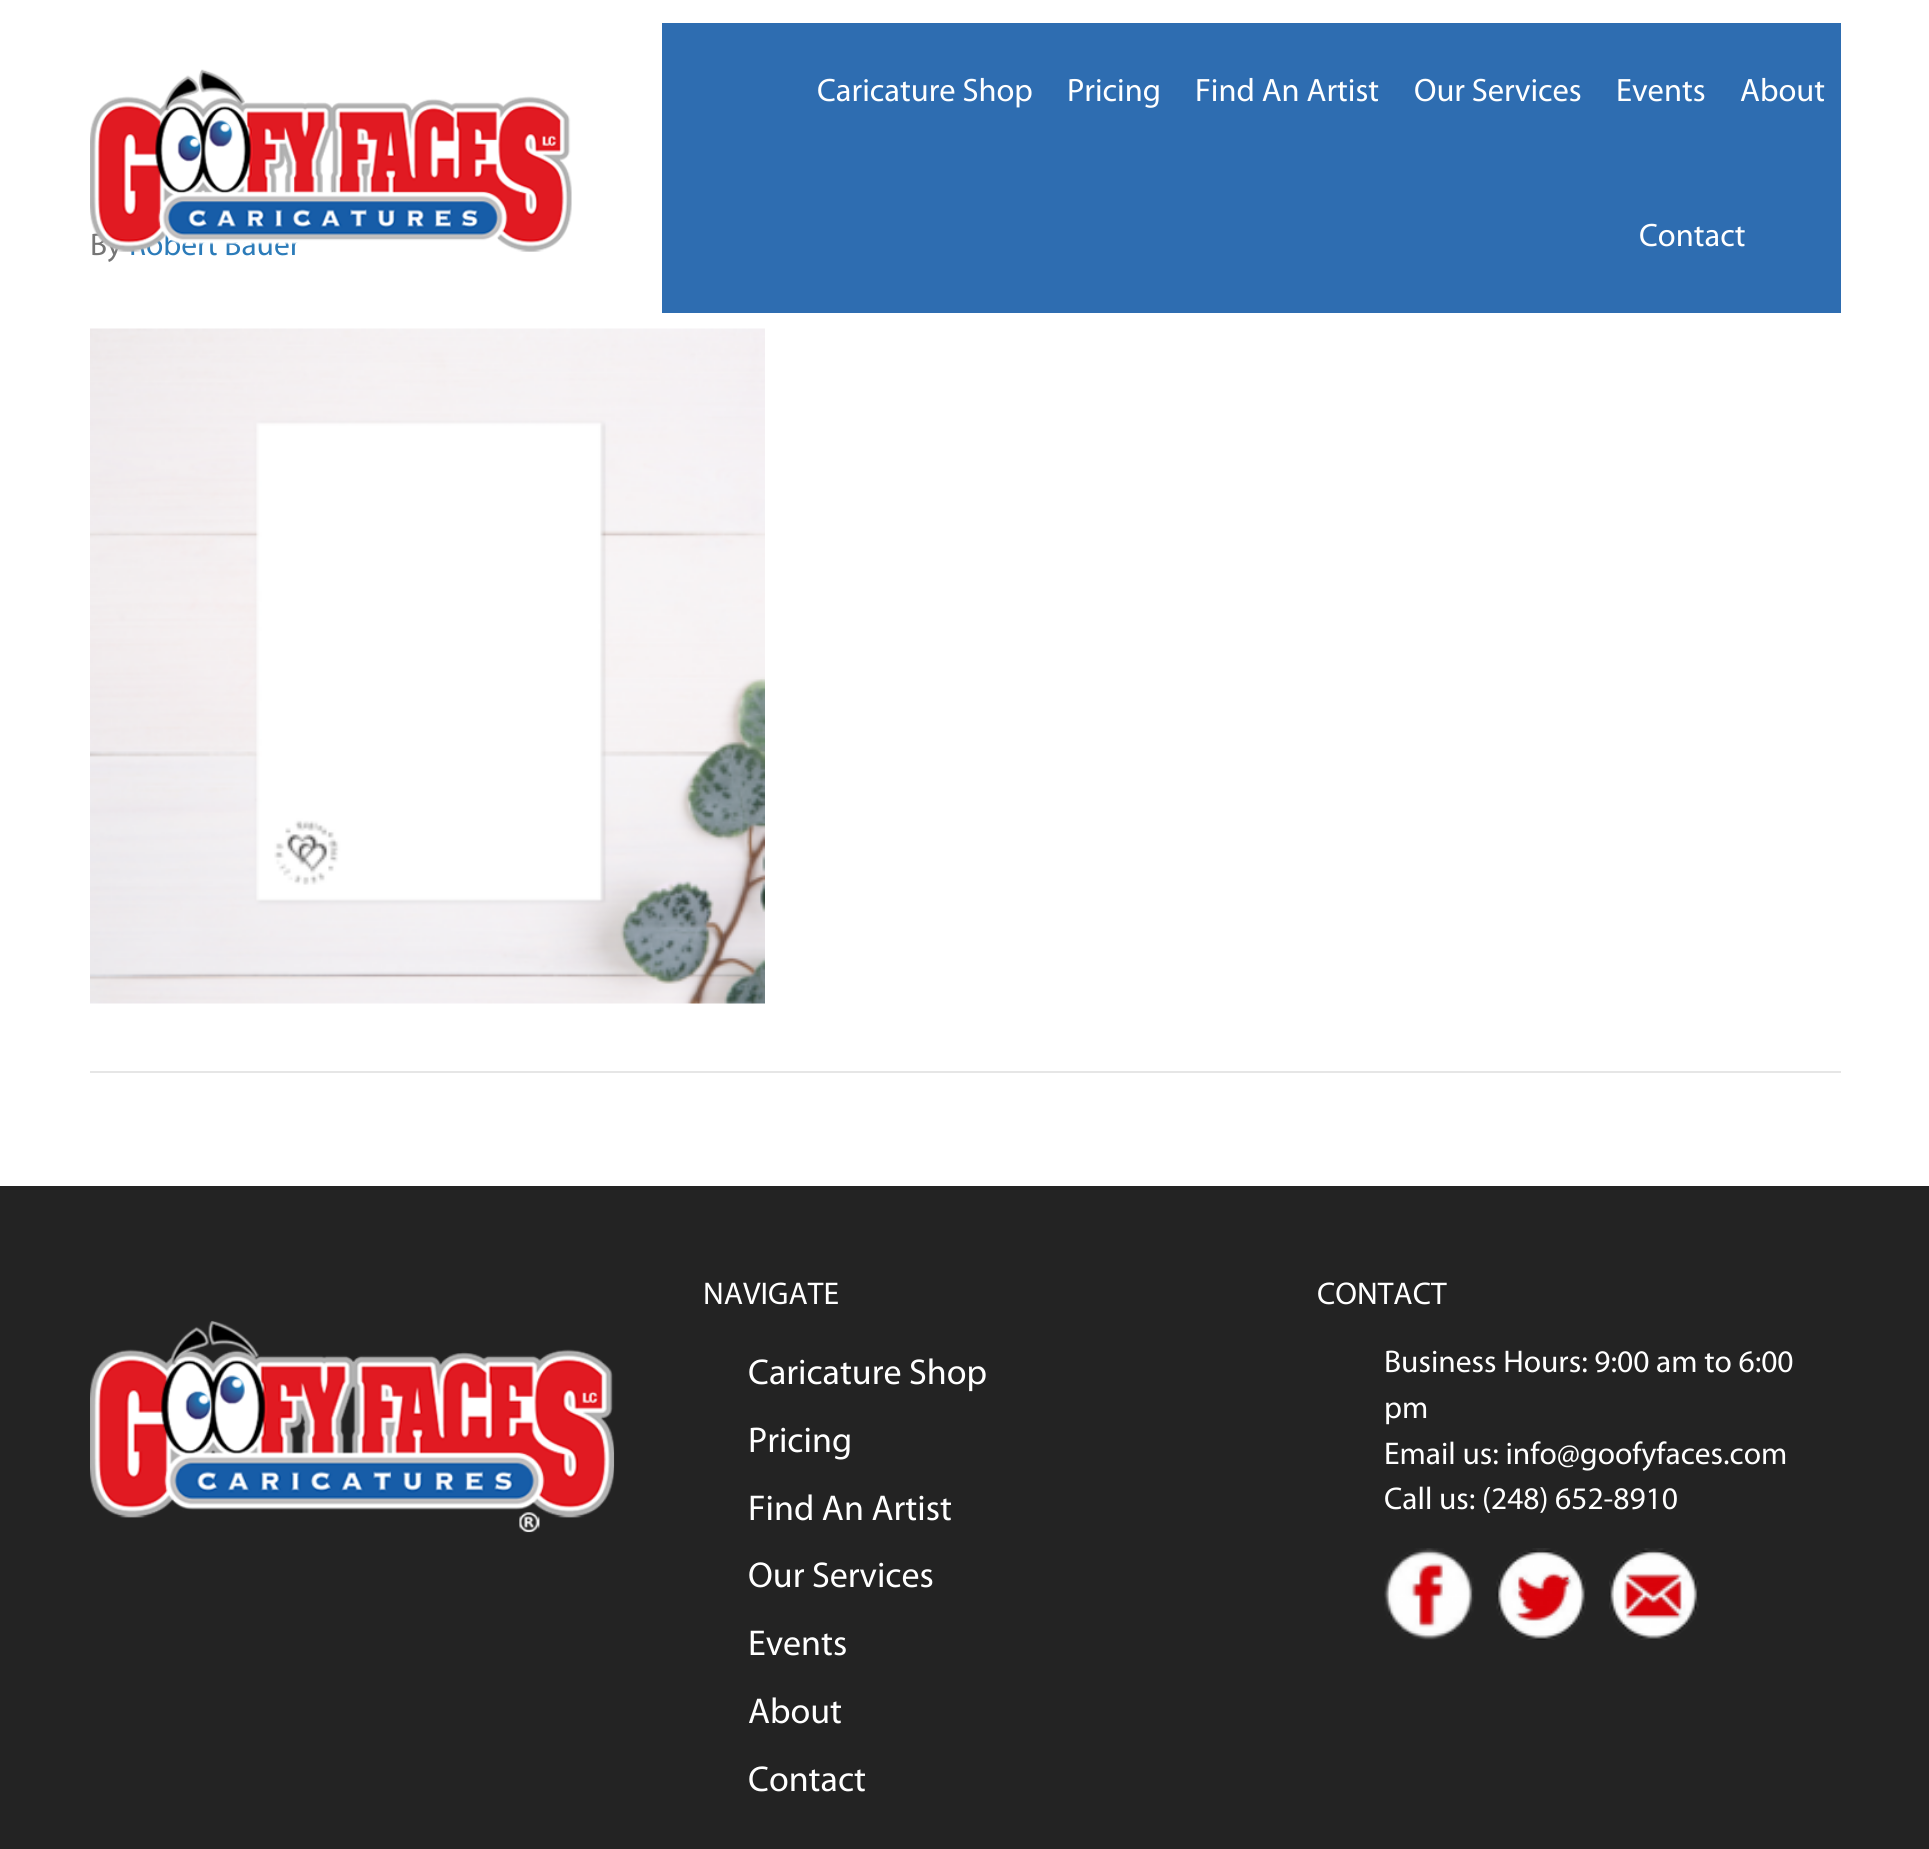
import math
import cairo


def use_color(cr, r, g, b):
  cr.set_source_rgb(r / 255, g / 255, b / 255)

def text(cr, x, y, s, family, size, color, bold=False, italic=False):
  cr.select_font_face(family, cairo.FONT_SLANT_ITALIC if italic else cairo.FONT_SLANT_NORMAL, cairo.FONT_WEIGHT_BOLD if bold else cairo.FONT_WEIGHT_NORMAL)
  cr.set_font_size(size)
  use_color(cr, *color)
  cr.move_to(x, y)
  cr.show_text(s)

def box(cr, x, y, w, h, *color):
  use_color(cr, *color)
  cr.rectangle(x, y, w, h)
  cr.fill()

def picture(cr, path, x, y, w, h):
  cr.save()
  cr.set_source_surface(cairo.ImageSurface.create_from_png(path), x, y)
  cr.rectangle(x, y, w, h)
  cr.fill()
  cr.restore()

def draw(cr):
  use_color(cr, 255, 255, 255)
  cr.paint()
  picture(cr, "img_01.png", 90, 328, 675, 676)
  box(cr, 90, 1071, 1751, 2, 230, 230, 230)
  box(cr, 662, 23, 1179, 290, 46, 109, 177)
  box(cr, 0, 1186, 1929, 663, 35, 35, 35)
  picture(cr, "img_03.png", 90, 1320, 525, 213)
  picture(cr, "img_04.png", 1384, 1548, 90, 92)
  picture(cr, "img_05.png", 1496, 1548, 90, 92)
  picture(cr, "img_06.png", 1609, 1548, 90, 92)
  text(cr, 90, 255, "By", "Myriad", 31.5, (117, 117, 117))
  text(cr, 129, 255, "Robert Bauer", "Myriad", 31.5, (43, 123, 185))
  picture(cr, "img_02.png", 90, 69, 482, 183)
  text(cr, 817, 101, "Caricature Shop", "Myriad", 32.5, (255, 255, 255))
  text(cr, 1067, 101, "Pricing", "Myriad", 32.5, (255, 255, 255))
  text(cr, 1195, 101, "Find An Artist", "Myriad", 32.5, (255, 255, 255))
  text(cr, 1414, 101, "Our Services", "Myriad", 32.5, (255, 255, 255))
  text(cr, 1616, 101, "Events", "Myriad", 32.5, (255, 255, 255))
  text(cr, 1740, 101, "About", "Myriad", 32.5, (255, 255, 255))
  text(cr, 1639, 246, "Contact", "Myriad", 32.5, (255, 255, 255))
  text(cr, 703, 1304, "NAVIGATE", "Myriad", 31.5, (255, 255, 255))
  text(cr, 748, 1384, "Caricature Shop", "Myriad", 36, (255, 255, 255))
  text(cr, 748, 1452, "Pricing", "Myriad", 36, (255, 255, 255))
  text(cr, 748, 1520, "Find An Artist", "Myriad", 36, (255, 255, 255))
  text(cr, 748, 1587, "Our Services", "Myriad", 36, (255, 255, 255))
  text(cr, 748, 1655, "Events", "Myriad", 36, (255, 255, 255))
  text(cr, 748, 1723, "About", "Myriad", 36, (255, 255, 255))
  text(cr, 748, 1791, "Contact", "Myriad", 36, (255, 255, 255))
  text(cr, 1317, 1304, "CONTACT", "Myriad", 31.5, (255, 255, 255))
  text(cr, 1384, 1372, "Business Hours: 9:00 am to 6:00", "Myriad", 31.5, (255, 255, 255))
  text(cr, 1384, 1418, "pm", "Myriad", 31.5, (255, 255, 255))
  text(cr, 1384, 1464, "Email us: info@goofyfaces.com", "Myriad", 31.5, (255, 255, 255))
  text(cr, 1384, 1509, "Call us: (248) 652-8910", "Myriad", 31.5, (255, 255, 255))


surface = cairo.ImageSurface(cairo.FORMAT_RGB24, 1929, 1849)
cr = cairo.Context(surface)
options = cairo.FontOptions()
options.set_hint_metrics(cairo.HINT_METRICS_OFF)
options.set_hint_style(cairo.HINT_STYLE_NONE)
cr.set_font_options(options)
cr.set_miter_limit(4)
draw(cr)
surface.write_to_png("out.png")
